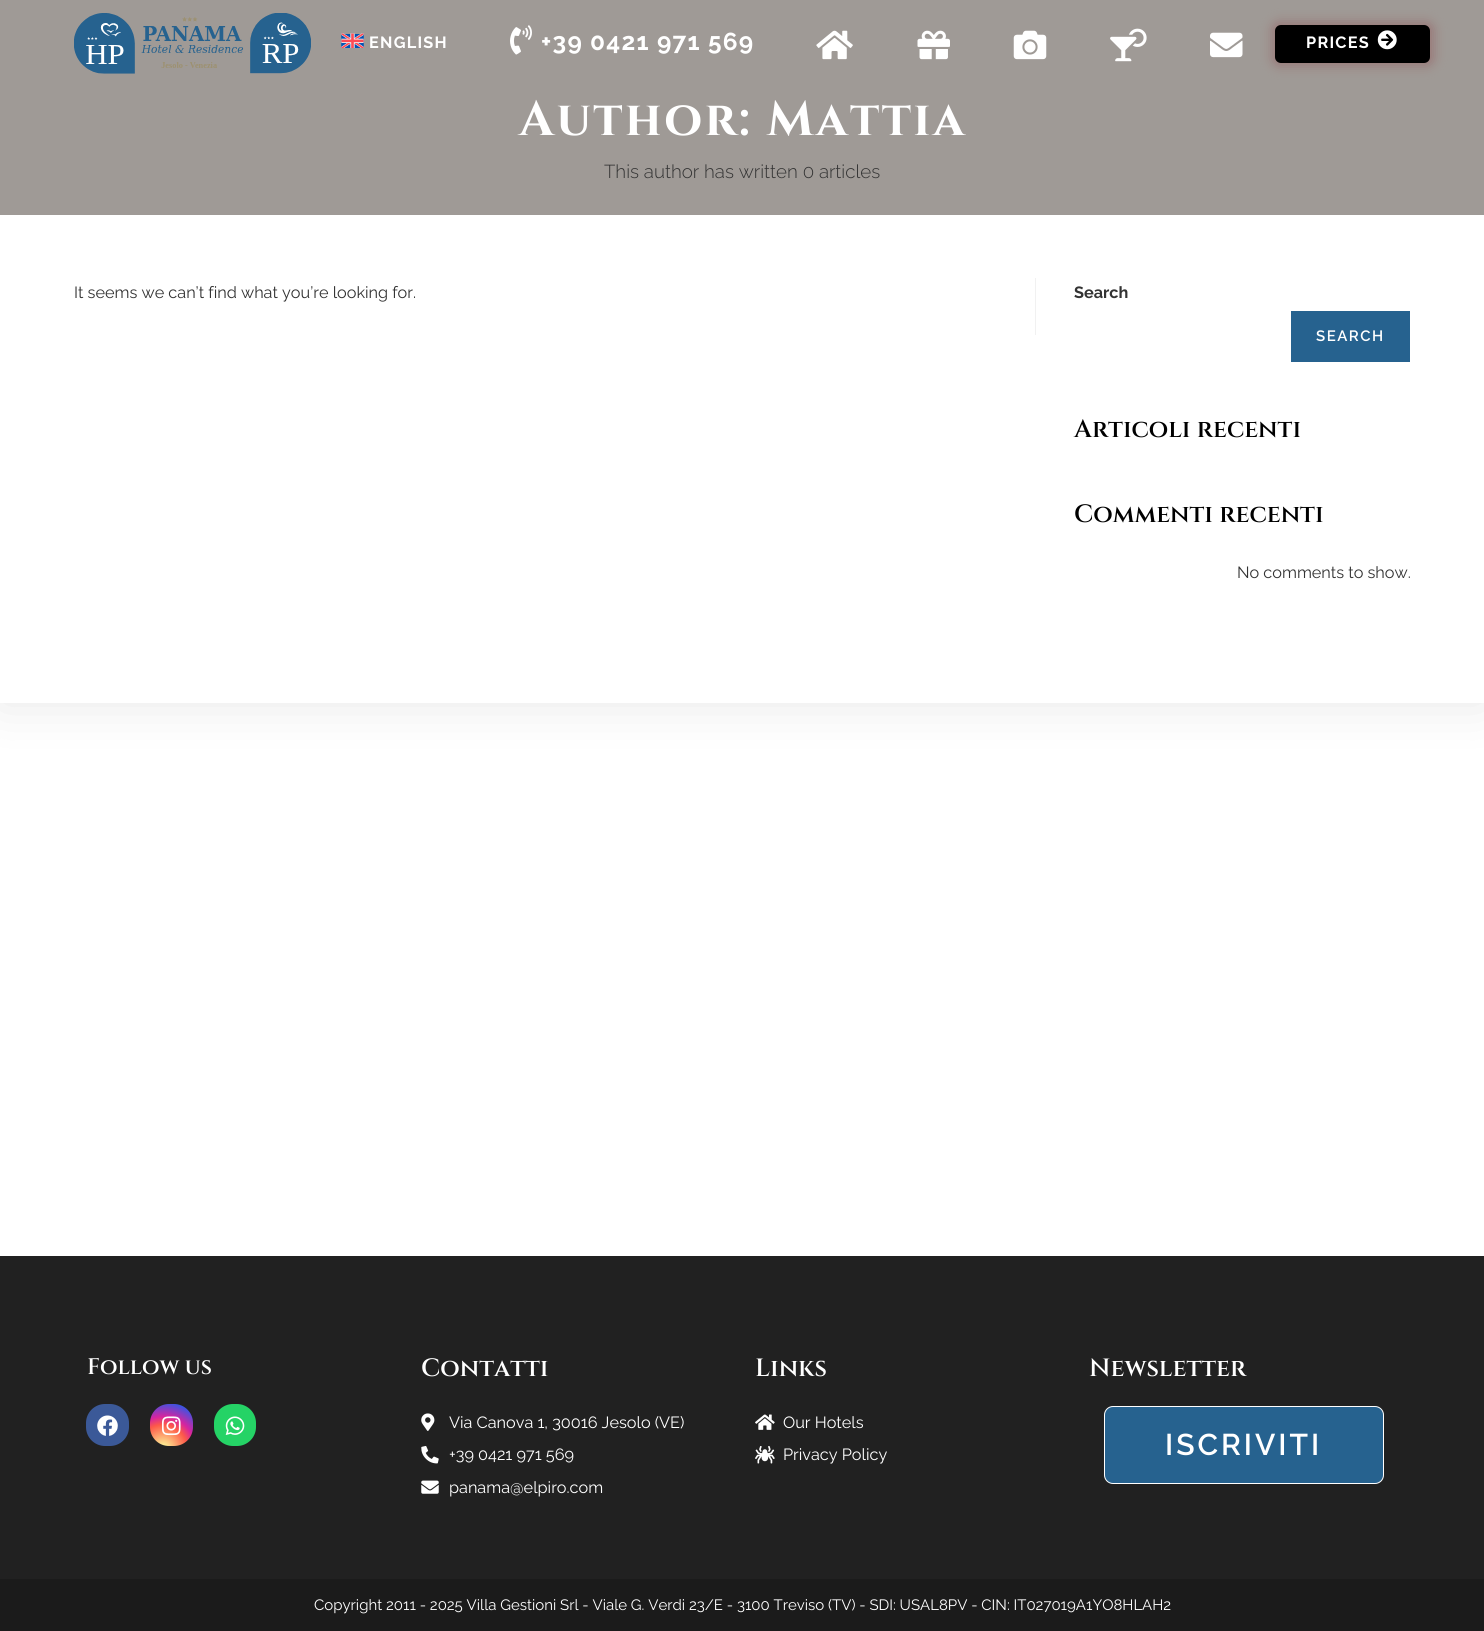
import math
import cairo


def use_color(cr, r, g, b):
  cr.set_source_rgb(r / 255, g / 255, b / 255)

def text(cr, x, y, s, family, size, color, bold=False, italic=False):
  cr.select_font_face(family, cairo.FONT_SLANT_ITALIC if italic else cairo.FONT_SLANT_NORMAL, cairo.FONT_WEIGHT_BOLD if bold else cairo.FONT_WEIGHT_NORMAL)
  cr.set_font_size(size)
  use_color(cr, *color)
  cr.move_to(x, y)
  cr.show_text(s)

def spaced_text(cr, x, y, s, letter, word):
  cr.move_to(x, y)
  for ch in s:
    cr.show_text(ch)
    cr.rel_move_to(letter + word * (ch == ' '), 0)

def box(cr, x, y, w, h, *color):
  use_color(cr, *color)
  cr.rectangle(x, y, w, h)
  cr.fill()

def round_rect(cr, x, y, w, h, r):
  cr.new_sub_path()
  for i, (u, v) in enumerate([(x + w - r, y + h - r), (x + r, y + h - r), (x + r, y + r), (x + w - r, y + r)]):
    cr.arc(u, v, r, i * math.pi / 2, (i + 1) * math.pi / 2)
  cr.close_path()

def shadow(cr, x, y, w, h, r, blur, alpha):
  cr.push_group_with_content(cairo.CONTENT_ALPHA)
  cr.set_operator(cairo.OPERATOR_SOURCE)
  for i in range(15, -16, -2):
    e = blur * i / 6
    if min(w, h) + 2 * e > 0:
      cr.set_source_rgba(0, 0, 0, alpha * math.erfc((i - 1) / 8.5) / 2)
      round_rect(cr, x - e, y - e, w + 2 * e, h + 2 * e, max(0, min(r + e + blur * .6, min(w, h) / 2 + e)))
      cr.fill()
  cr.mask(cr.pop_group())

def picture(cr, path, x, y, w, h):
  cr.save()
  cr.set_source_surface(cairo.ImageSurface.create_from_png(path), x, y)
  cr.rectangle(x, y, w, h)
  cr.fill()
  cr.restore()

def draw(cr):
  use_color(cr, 255, 255, 255)
  cr.paint()
  use_color(cr, 0, 0, 0)
  shadow(cr, 0, 0, 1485, 703, 0, 25, 0.1)
  box(cr, 0, 0, 1484, 215, 159, 154, 150)
  picture(cr, "img_01.png", 74, 13, 237, 61)
  picture(cr, "img_02.png", 341, 33, 23, 15)
  picture(cr, "img_03.png", 510, 25, 22, 30)
  picture(cr, "img_04.png", 816, 30, 37, 30)
  picture(cr, "img_05.png", 917, 30, 33, 30)
  picture(cr, "img_06.png", 1013, 30, 34, 30)
  picture(cr, "img_07.png", 1110, 28, 37, 34)
  picture(cr, "img_08.png", 1210, 32, 33, 26)
  use_color(cr, 152, 115, 115)
  shadow(cr, 1273, 23, 160, 42, 6, 6, 1)
  use_color(cr, 0, 0, 0)
  round_rect(cr, 1275, 25, 155, 38, 6)
  cr.fill()
  picture(cr, "img_09.png", 1377, 30, 20, 20)
  box(cr, 0, 215, 1484, 488, 255, 255, 255)
  box(cr, 1035, 278, 1, 57, 241, 241, 241)
  box(cr, 1291, 311, 119, 51, 38, 98, 143)
  box(cr, 0, 1256, 1484, 323, 33, 33, 33)
  use_color(cr, 59, 89, 152)
  round_rect(cr, 86, 1404, 43, 42, 19)
  cr.fill()
  picture(cr, "img_10.png", 97, 1415, 21, 21)
  gradient = cairo.RadialGradient(163, 1449, 0, 163, 1449, 54)
  gradient.add_color_stop_rgba(0, 0.992, 0.957, 0.592, 1)
  gradient.add_color_stop_rgba(0.05, 0.992, 0.957, 0.592, 1)
  gradient.add_color_stop_rgba(0.45, 0.992, 0.349, 0.286, 1)
  gradient.add_color_stop_rgba(0.6, 0.839, 0.141, 0.624, 1)
  gradient.add_color_stop_rgba(0.9, 0.157, 0.353, 0.922, 1)
  cr.set_source(gradient)
  round_rect(cr, 150, 1404, 43, 42, 19)
  cr.fill()
  picture(cr, "img_11.png", 161, 1416, 20, 20)
  use_color(cr, 37, 211, 102)
  round_rect(cr, 214, 1404, 42, 42, 19)
  cr.fill()
  picture(cr, "img_12.png", 225, 1416, 20, 19)
  picture(cr, "img_13.png", 421, 1413, 14, 18)
  picture(cr, "img_14.png", 421, 1446, 18, 18)
  picture(cr, "img_15.png", 421, 1480, 18, 14)
  picture(cr, "img_16.png", 755, 1414, 20, 16)
  picture(cr, "img_17.png", 755, 1446, 20, 18)
  use_color(cr, 38, 98, 143)
  round_rect(cr, 1104.5, 1406.5, 279, 77, 8.5)
  cr.fill_preserve()
  use_color(cr, 255, 255, 255)
  cr.set_line_width(1)
  cr.stroke()
  box(cr, 0, 1579, 1484, 52, 27, 27, 27)
  cr.select_font_face("Raleway", cairo.FONT_SLANT_NORMAL, cairo.FONT_WEIGHT_BOLD)
  cr.set_font_size(16.25)
  use_color(cr, 255, 255, 255)
  spaced_text(cr, 369, 48, "ENGLISH", 1.25, 0)
  cr.set_font_size(24.4)
  spaced_text(cr, 541, 50, "+39 0421 971 569", 1.25, 0)
  cr.set_font_size(16.25)
  spaced_text(cr, 1306, 48, "PRICES", 1.25, 0)
  cr.select_font_face("Cinzel", cairo.FONT_SLANT_NORMAL, cairo.FONT_WEIGHT_BOLD)
  cr.set_font_size(48.75)
  spaced_text(cr, 519, 135, "Author: Mattia", 2.5, 0)
  text(cr, 604, 178, "This author has written 0 articles", "Raleway Light", 18.75, (51, 51, 51))
  text(cr, 74, 298, "It seems we can’t find what you’re looking for.", "Raleway", 16.25, (51, 51, 51))
  text(cr, 1074, 298, "Search", "Raleway", 16.25, (51, 51, 51), bold=True)
  cr.select_font_face("Raleway SemiBold")
  cr.set_font_size(15)
  use_color(cr, 255, 255, 255)
  spaced_text(cr, 1316, 341, "SEARCH", 1.5, 0)
  text(cr, 1074, 437, "Articoli recenti", "Cinzel SemiBold", 25, (0, 0, 0))
  text(cr, 1074, 522, "Commenti recenti", "Cinzel SemiBold", 25, (0, 0, 0))
  text(cr, 1237, 578, "No comments to show.", "Raleway", 16.25, (51, 51, 51))
  text(cr, 87, 1374, "Follow us", "Cinzel SemiBold", 22.5, (255, 255, 255))
  text(cr, 421, 1376, "Contatti", "Cinzel SemiBold", 25, (255, 255, 255))
  text(cr, 449, 1428, "Via Canova 1, 30016 Jesolo (VE)", "Raleway", 16.25, (255, 255, 255))
  text(cr, 449, 1460, "+39 0421 971 569", "Raleway", 16.25, (255, 255, 255))
  text(cr, 449, 1493, "panama@elpiro.com", "Raleway", 16.25, (255, 255, 255))
  text(cr, 755, 1376, "Links", "Cinzel SemiBold", 25, (255, 255, 255))
  text(cr, 783, 1428, "Our Hotels", "Raleway", 16.25, (255, 255, 255))
  text(cr, 783, 1460, "Privacy Policy", "Raleway", 16.25, (255, 255, 255))
  text(cr, 1089, 1376, "Newsletter", "Cinzel SemiBold", 25, (255, 255, 255))
  cr.select_font_face("Raleway SemiBold")
  cr.set_font_size(30)
  spaced_text(cr, 1165, 1455, "ISCRIVITI", 3, 0)
  text(cr, 314, 1610, "Copyright 2011 - 2025 Villa Gestioni Srl - Viale G. Verdi 23/E - 3100 Treviso (TV) - SDI: USAL8PV - CIN: IT027019A1YO8HLAH2", "Raleway", 15, (255, 255, 255))


surface = cairo.ImageSurface(cairo.FORMAT_RGB24, 1484, 1631)
cr = cairo.Context(surface)
options = cairo.FontOptions()
options.set_hint_metrics(cairo.HINT_METRICS_OFF)
options.set_hint_style(cairo.HINT_STYLE_NONE)
cr.set_font_options(options)
cr.set_miter_limit(4)
draw(cr)
surface.write_to_png("out.png")
